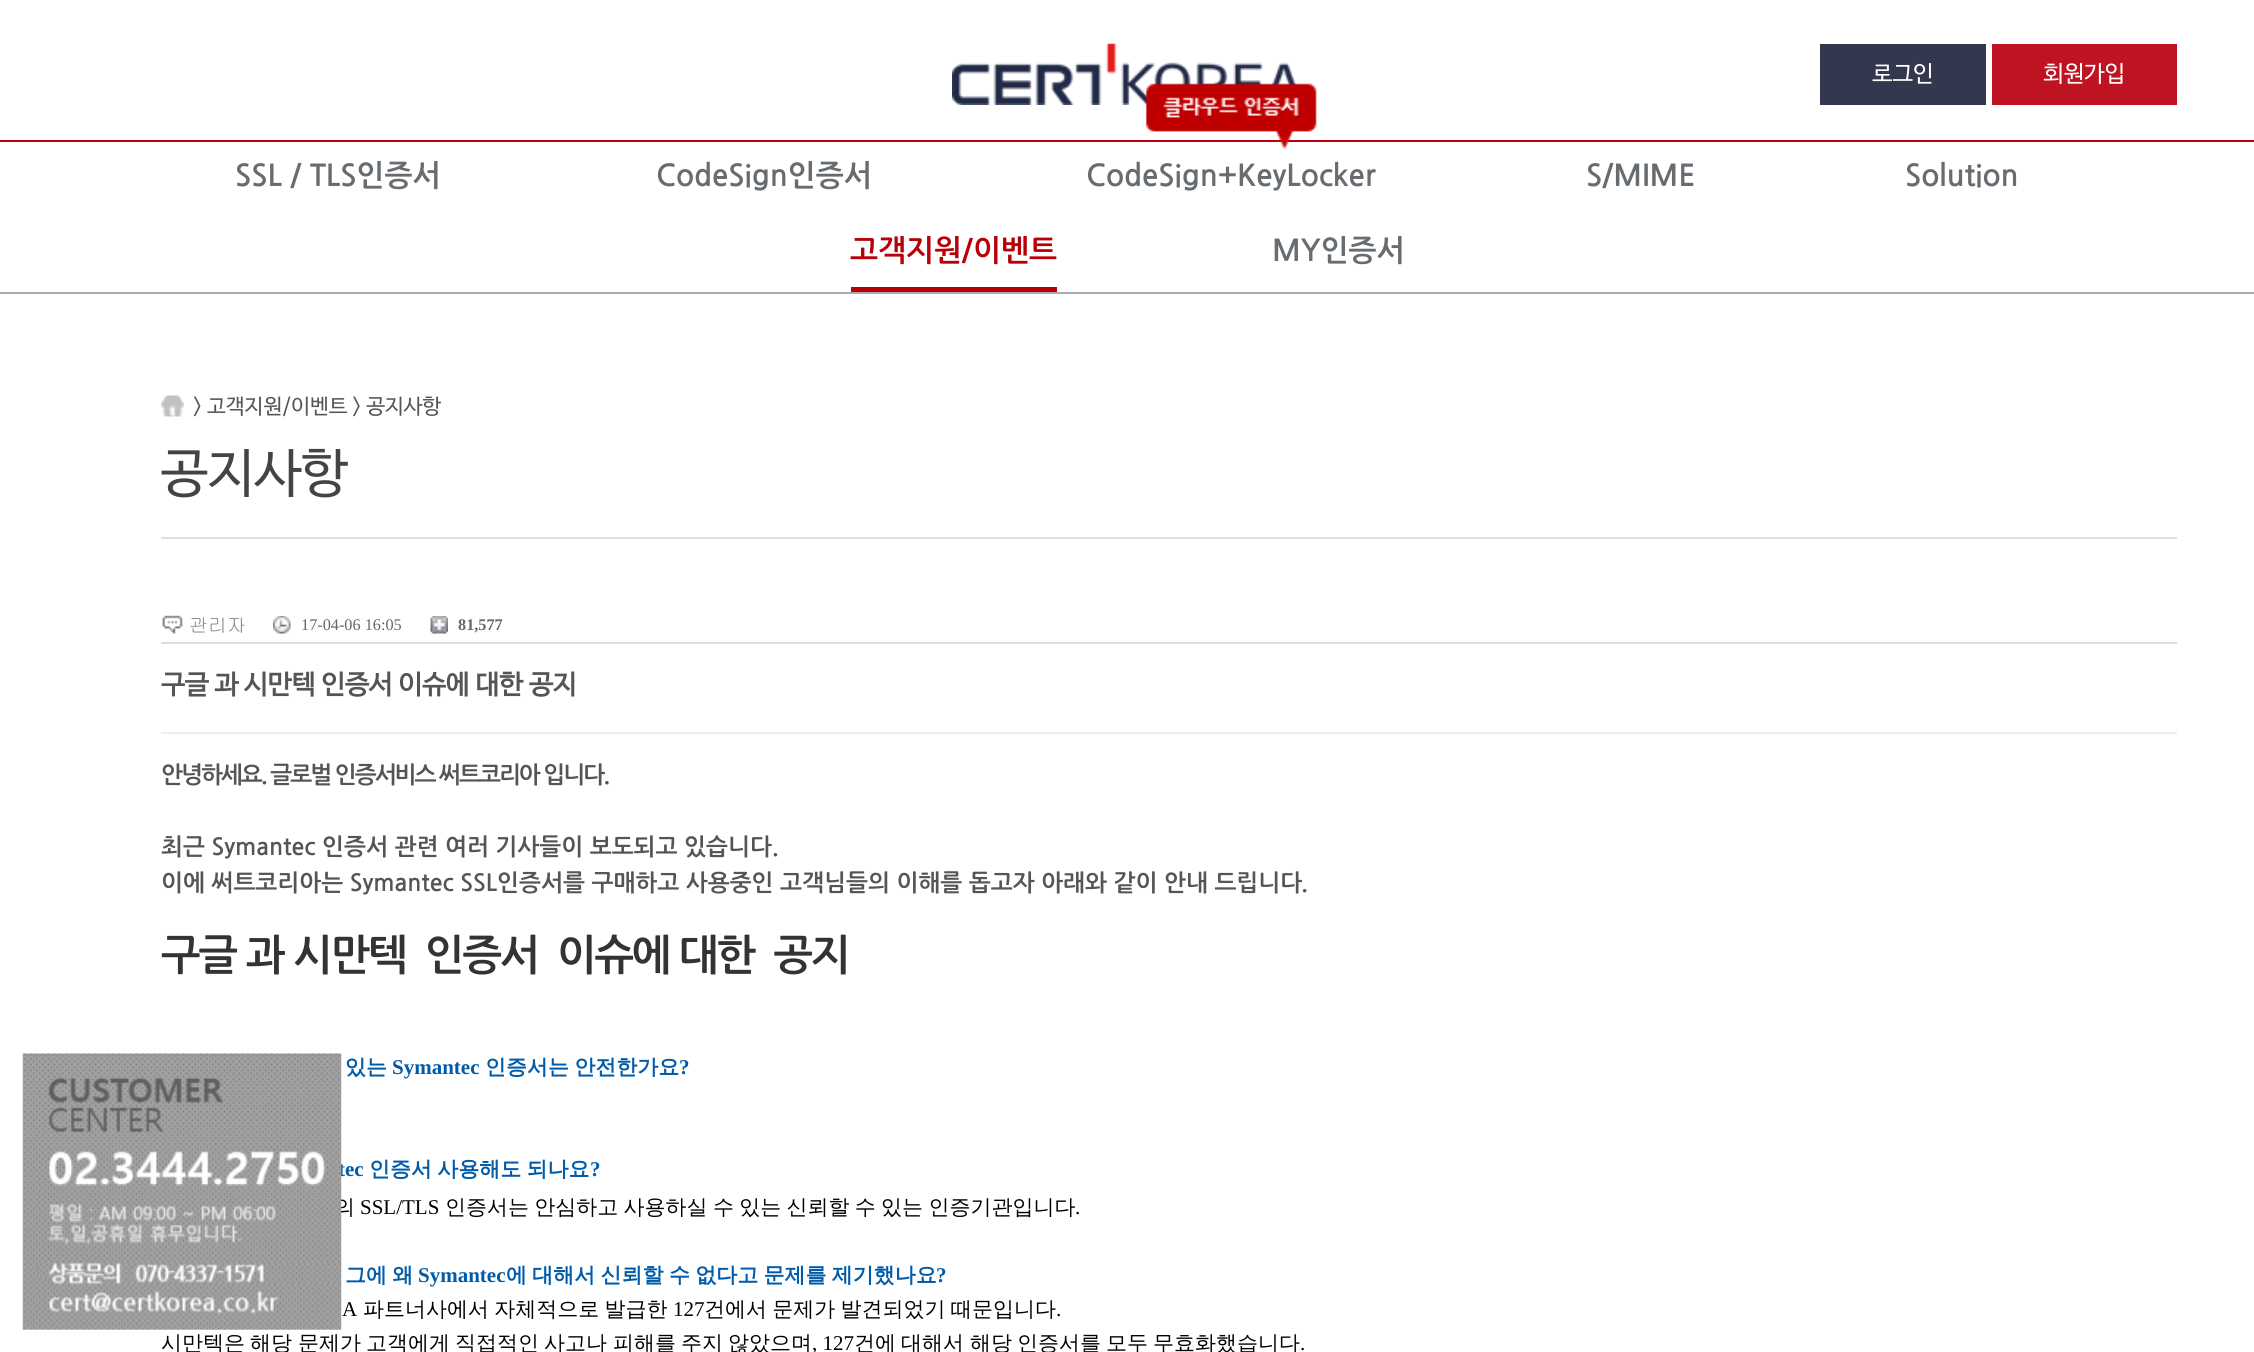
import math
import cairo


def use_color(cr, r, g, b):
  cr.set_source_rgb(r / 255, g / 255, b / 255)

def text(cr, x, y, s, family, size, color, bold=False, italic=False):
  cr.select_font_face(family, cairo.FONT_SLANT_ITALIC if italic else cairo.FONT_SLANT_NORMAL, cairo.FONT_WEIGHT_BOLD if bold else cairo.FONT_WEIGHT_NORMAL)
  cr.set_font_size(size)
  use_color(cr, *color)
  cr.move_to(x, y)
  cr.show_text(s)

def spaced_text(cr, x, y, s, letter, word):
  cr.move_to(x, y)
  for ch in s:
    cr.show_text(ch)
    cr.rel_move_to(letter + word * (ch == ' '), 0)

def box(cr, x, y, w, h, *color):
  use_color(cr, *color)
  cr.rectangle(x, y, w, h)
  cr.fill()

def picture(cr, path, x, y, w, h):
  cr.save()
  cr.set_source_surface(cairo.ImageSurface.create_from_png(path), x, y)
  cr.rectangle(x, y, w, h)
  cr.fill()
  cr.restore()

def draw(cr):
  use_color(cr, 255, 255, 255)
  cr.paint()
  picture(cr, "img_01.png", 952, 43, 345, 62)
  box(cr, 1820, 44, 166, 61, 52, 56, 78)
  box(cr, 1992, 44, 185, 61, 190, 20, 33)
  box(cr, 0, 140, 2254, 2, 183, 0, 11)
  box(cr, 0, 292, 2254, 2, 170, 170, 170)
  picture(cr, "img_02.png", 1145, 83, 172, 67)
  box(cr, 851, 287, 206, 5, 183, 0, 8)
  box(cr, 161, 537, 2016, 2, 223, 223, 223)
  picture(cr, "img_03.png", 161, 395, 23, 22)
  box(cr, 161, 642, 2016, 2, 221, 221, 221)
  picture(cr, "img_04.png", 162, 615, 21, 19)
  picture(cr, "img_05.png", 273, 616, 18, 18)
  picture(cr, "img_06.png", 430, 616, 18, 18)
  box(cr, 161, 732, 2016, 2, 238, 238, 238)
  text(cr, 1872, 81, "로그인", "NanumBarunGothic", 23, (255, 255, 255))
  text(cr, 2043, 81, "회원가입", "NanumBarunGothic", 23, (255, 255, 255))
  text(cr, 235, 186, "SSL / TLS인증서", "NanumGothic", 29.75, (103, 108, 113), bold=True)
  text(cr, 656, 186, "CodeSign인증서", "NanumGothic", 29.75, (103, 108, 113), bold=True)
  text(cr, 1086, 186, "CodeSign+KeyLocker", "NanumGothic", 29.75, (103, 108, 113), bold=True)
  text(cr, 1586, 186, "S/MIME", "NanumGothic", 29.75, (103, 108, 113), bold=True)
  text(cr, 1905, 186, "Solution", "NanumGothic", 29.75, (103, 108, 113), bold=True)
  text(cr, 850, 261, "고객지원/이벤트", "NanumGothic", 29.75, (183, 0, 8), bold=True)
  text(cr, 1272, 261, "MY인증서", "NanumGothic", 29.75, (103, 108, 113), bold=True)
  text(cr, 193, 413, "> 고객지원/이벤트 > 공지사항", "NanumBarunGothic", 21, (85, 85, 85))
  text(cr, 161, 490, "공지사항", "NanumBarunGothic", 52.5, (68, 68, 68))
  text(cr, 189, 632, "관리자", "Gulim", 19, (136, 136, 136))
  text(cr, 301, 630, "17-04-06 16:05", "Liberation Serif", 16.25, (102, 102, 102))
  text(cr, 458, 630, "81,577", "Liberation Serif", 16.25, (102, 102, 102), bold=True)
  text(cr, 161, 693, "구글 과 시만텍 인증서 이슈에 대한 공지", "NanumBarunGothic", 26.6, (85, 85, 85), bold=True)
  cr.select_font_face("NanumGothic", cairo.FONT_SLANT_NORMAL, cairo.FONT_WEIGHT_BOLD)
  cr.set_font_size(23.35)
  spaced_text(cr, 161, 783, "안녕하세요. 글로벌 인증서비스 써트코리아 입니다.", -2, 0)
  text(cr, 161, 855, "최근 Symantec 인증서 관련 여러 기사들이 보도되고 있습니다.", "NanumGothic", 23.35, (85, 85, 85), bold=True)
  text(cr, 161, 891, "이에 써트코리아는 Symantec SSL인증서를 구매하고 사용중인 고객님들의 이해를 돕고자 아래와 같이 안내 드립니다", "NanumGothic", 23.35, (85, 85, 85), bold=True)
  text(cr, 1301, 891, ".", "NanumGothic", 23.35, (85, 85, 85), bold=True)
  cr.set_font_size(42)
  use_color(cr, 51, 51, 51)
  spaced_text(cr, 161, 970, "구글 과 시만텍  인증서  이슈에 대한  공지", -2, 0)
  cr.select_font_face("WenQuanYi Zen Hei", cairo.FONT_SLANT_NORMAL, cairo.FONT_WEIGHT_BOLD)
  cr.set_font_size(21)
  use_color(cr, 0, 91, 171)
  spaced_text(cr, 345, 1074, "있는", 0, -1)
  text(cr, 392, 1074, "Symantec", "Liberation Serif", 21, (0, 91, 171), bold=True)
  cr.select_font_face("WenQuanYi Zen Hei", cairo.FONT_SLANT_NORMAL, cairo.FONT_WEIGHT_BOLD)
  spaced_text(cr, 485, 1074, "인증서는 안전한가요", 0, -1)
  text(cr, 679, 1074, "?", "Liberation Serif", 21, (0, 91, 171), bold=True)
  text(cr, 338, 1176, "tec", "Liberation Serif", 21, (0, 91, 171), bold=True)
  cr.select_font_face("WenQuanYi Zen Hei", cairo.FONT_SLANT_NORMAL, cairo.FONT_WEIGHT_BOLD)
  spaced_text(cr, 369, 1176, "인증서 사용해도 되나요", 0, -1)
  text(cr, 590, 1176, "?", "Liberation Serif", 21, (0, 91, 171), bold=True)
  text(cr, 334, 1214, "의", "WenQuanYi Zen Hei Medium", 21, (0, 0, 0))
  text(cr, 360, 1214, "SSL/TLS", "Liberation Serif", 21, (0, 0, 0))
  cr.select_font_face("WenQuanYi Zen Hei Medium")
  spaced_text(cr, 445, 1214, "인증서는 안심하고 사용하실 수 있는 신뢰할 수 있는 인증기관입니다", 0, -1)
  text(cr, 1075, 1214, ".", "Liberation Serif", 21, (0, 0, 0))
  cr.select_font_face("WenQuanYi Zen Hei", cairo.FONT_SLANT_NORMAL, cairo.FONT_WEIGHT_BOLD)
  use_color(cr, 0, 91, 171)
  spaced_text(cr, 345, 1282, "그에 왜", 0, -1)
  text(cr, 418, 1282, "Symantec", "Liberation Serif", 21, (0, 91, 171), bold=True)
  cr.select_font_face("WenQuanYi Zen Hei", cairo.FONT_SLANT_NORMAL, cairo.FONT_WEIGHT_BOLD)
  spaced_text(cr, 506, 1282, "에 대해서 신뢰할 수 없다고 문제를 제기했나요", 0, -1)
  text(cr, 936, 1282, "?", "Liberation Serif", 21, (0, 91, 171), bold=True)
  text(cr, 342, 1316, "A", "Liberation Serif", 21, (0, 0, 0))
  text(cr, 363, 1316, "파트너사", "WenQuanYi Zen Hei Medium", 21, (0, 0, 0))
  spaced_text(cr, 447, 1316, "에서 자체적으로 발급한", 0, -1)
  text(cr, 673, 1316, "127", "Liberation Serif", 21, (0, 0, 0))
  cr.select_font_face("WenQuanYi Zen Hei Medium")
  spaced_text(cr, 704, 1316, "건에서 문제가 발견되었기 때문입니다", 0, -1)
  text(cr, 1056, 1316, ".", "Liberation Serif", 21, (0, 0, 0))
  text(cr, 161, 1350, "시만텍은", "WenQuanYi Zen Hei Medium", 21, (0, 0, 0))
  text(cr, 250, 1350, "해당", "WenQuanYi Zen Hei Medium", 21, (0, 0, 0))
  text(cr, 298, 1350, "문제가", "WenQuanYi Zen Hei Medium", 21, (0, 0, 0))
  text(cr, 366, 1350, "고객에게", "WenQuanYi Zen Hei Medium", 21, (0, 0, 0))
  text(cr, 455, 1350, "직접적인", "WenQuanYi Zen Hei Medium", 21, (0, 0, 0))
  text(cr, 544, 1350, "사고나", "WenQuanYi Zen Hei Medium", 21, (0, 0, 0))
  text(cr, 613, 1350, "피해를", "WenQuanYi Zen Hei Medium", 21, (0, 0, 0))
  text(cr, 681, 1350, "주지", "WenQuanYi Zen Hei Medium", 21, (0, 0, 0))
  text(cr, 728, 1350, "않았으며", "WenQuanYi Zen Hei Medium", 21, (0, 0, 0))
  text(cr, 812, 1350, ", 127", "Liberation Serif", 21, (0, 0, 0))
  text(cr, 854, 1350, "건에", "WenQuanYi Zen Hei Medium", 21, (0, 0, 0))
  text(cr, 901, 1350, "대해서", "WenQuanYi Zen Hei Medium", 21, (0, 0, 0))
  text(cr, 970, 1350, "해당", "WenQuanYi Zen Hei Medium", 21, (0, 0, 0))
  text(cr, 1017, 1350, "인증서를", "WenQuanYi Zen Hei Medium", 21, (0, 0, 0))
  text(cr, 1106, 1350, "모두", "WenQuanYi Zen Hei Medium", 21, (0, 0, 0))
  text(cr, 1153, 1350, "무효화했습니다", "WenQuanYi Zen Hei Medium", 21, (0, 0, 0))
  text(cr, 1300, 1350, ".", "Liberation Serif", 21, (0, 0, 0))
  picture(cr, "img_07.png", 22, 1053, 320, 277)


surface = cairo.ImageSurface(cairo.FORMAT_RGB24, 2254, 1352)
cr = cairo.Context(surface)
options = cairo.FontOptions()
options.set_hint_metrics(cairo.HINT_METRICS_OFF)
options.set_hint_style(cairo.HINT_STYLE_NONE)
cr.set_font_options(options)
cr.set_miter_limit(4)
draw(cr)
surface.write_to_png("out.png")
